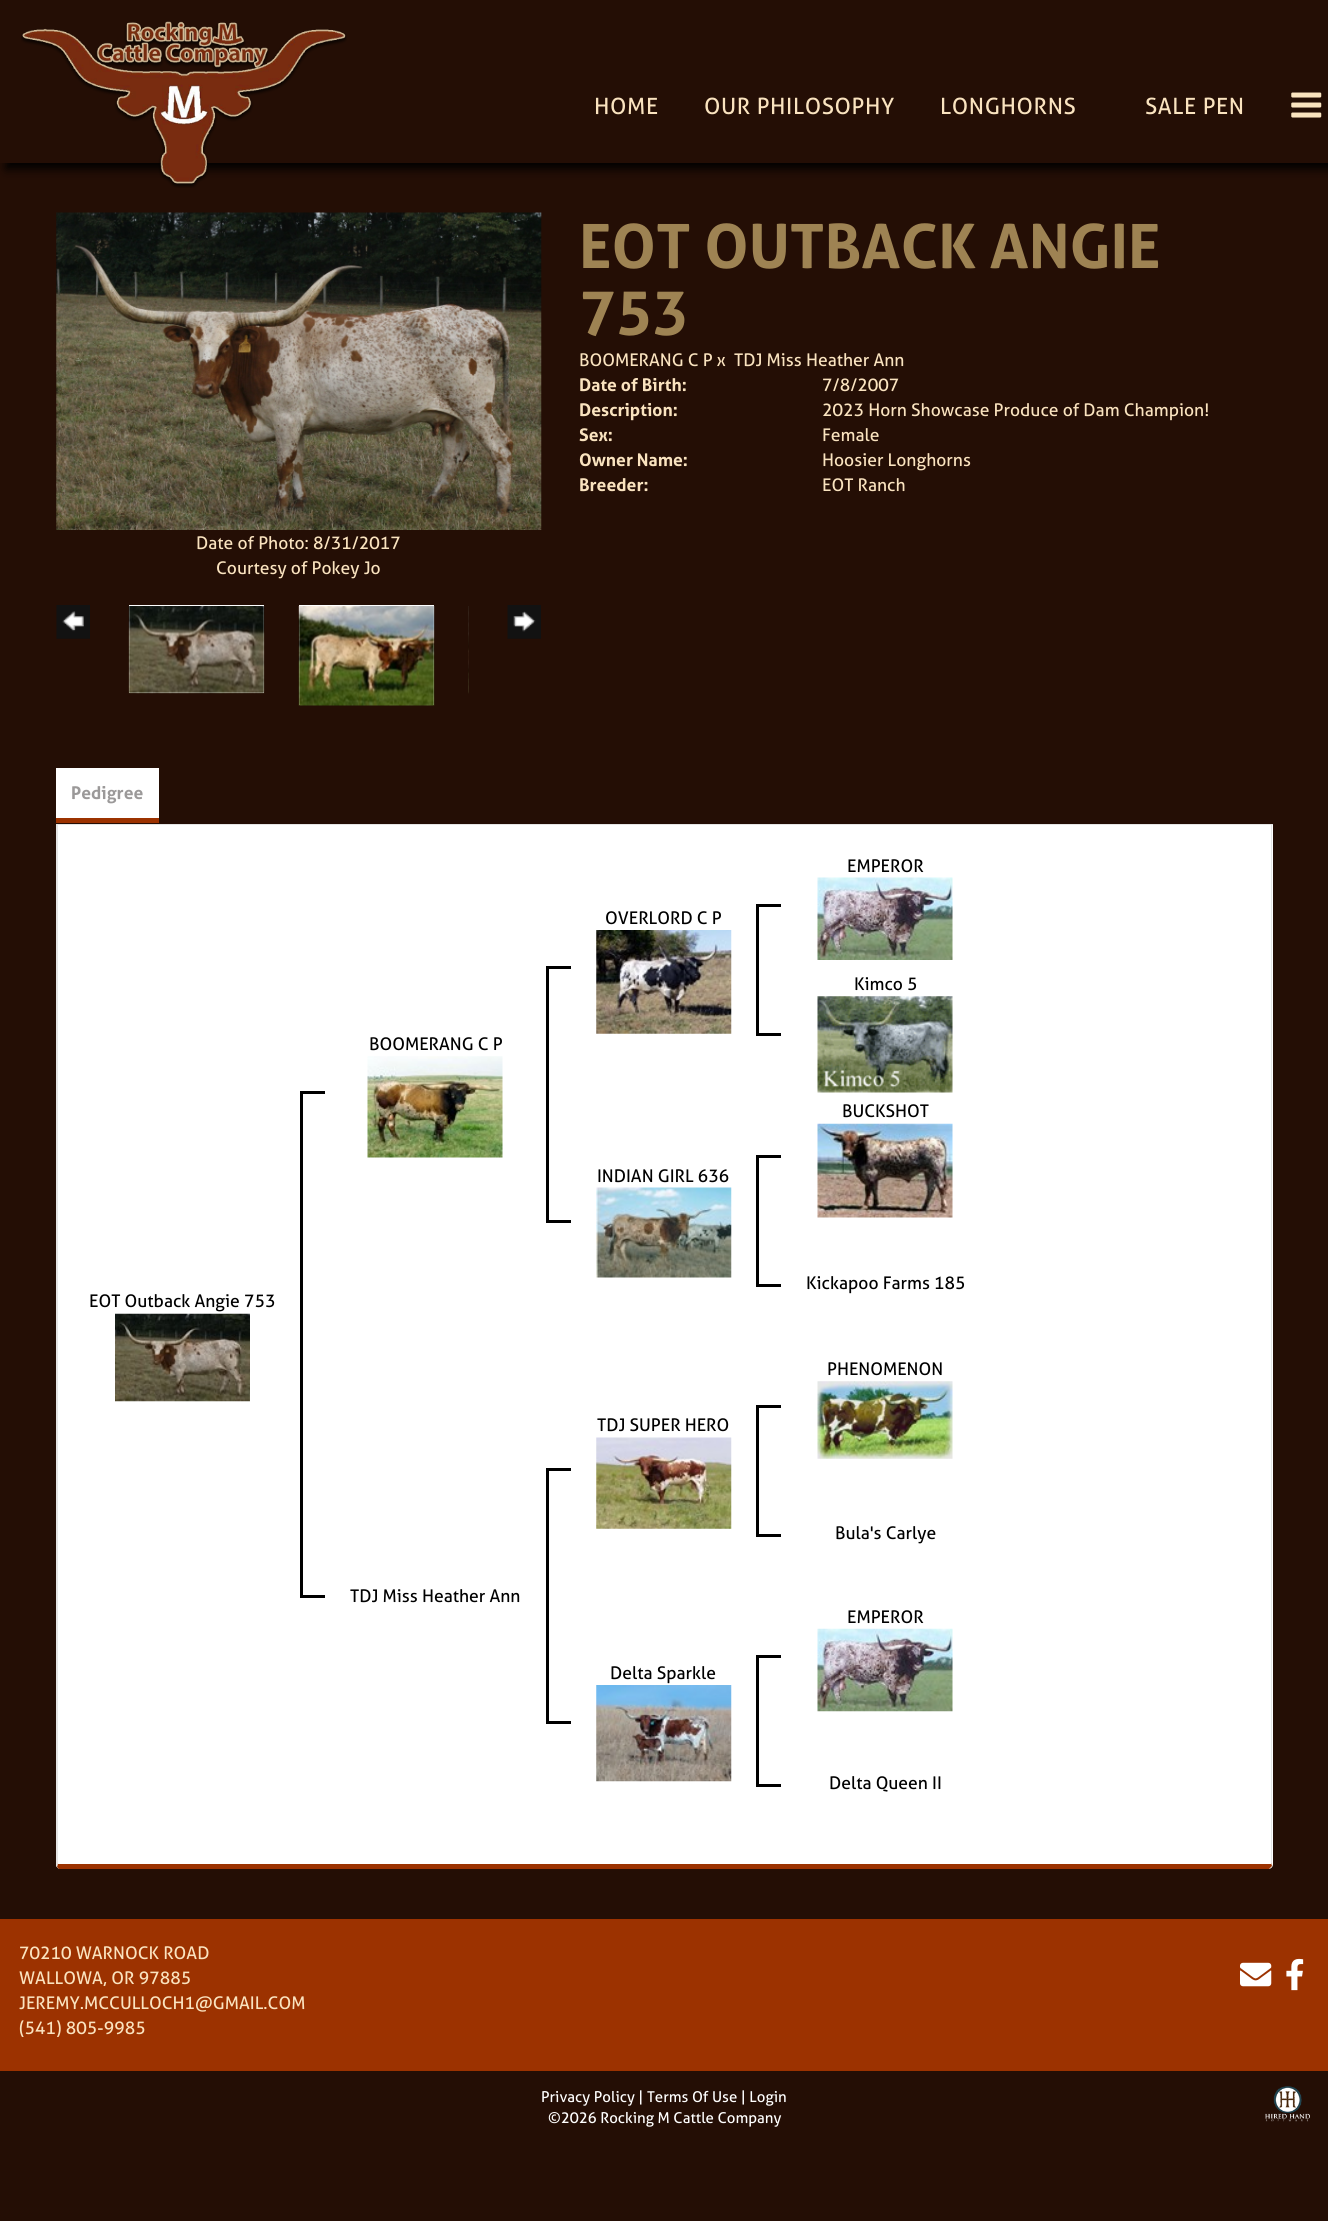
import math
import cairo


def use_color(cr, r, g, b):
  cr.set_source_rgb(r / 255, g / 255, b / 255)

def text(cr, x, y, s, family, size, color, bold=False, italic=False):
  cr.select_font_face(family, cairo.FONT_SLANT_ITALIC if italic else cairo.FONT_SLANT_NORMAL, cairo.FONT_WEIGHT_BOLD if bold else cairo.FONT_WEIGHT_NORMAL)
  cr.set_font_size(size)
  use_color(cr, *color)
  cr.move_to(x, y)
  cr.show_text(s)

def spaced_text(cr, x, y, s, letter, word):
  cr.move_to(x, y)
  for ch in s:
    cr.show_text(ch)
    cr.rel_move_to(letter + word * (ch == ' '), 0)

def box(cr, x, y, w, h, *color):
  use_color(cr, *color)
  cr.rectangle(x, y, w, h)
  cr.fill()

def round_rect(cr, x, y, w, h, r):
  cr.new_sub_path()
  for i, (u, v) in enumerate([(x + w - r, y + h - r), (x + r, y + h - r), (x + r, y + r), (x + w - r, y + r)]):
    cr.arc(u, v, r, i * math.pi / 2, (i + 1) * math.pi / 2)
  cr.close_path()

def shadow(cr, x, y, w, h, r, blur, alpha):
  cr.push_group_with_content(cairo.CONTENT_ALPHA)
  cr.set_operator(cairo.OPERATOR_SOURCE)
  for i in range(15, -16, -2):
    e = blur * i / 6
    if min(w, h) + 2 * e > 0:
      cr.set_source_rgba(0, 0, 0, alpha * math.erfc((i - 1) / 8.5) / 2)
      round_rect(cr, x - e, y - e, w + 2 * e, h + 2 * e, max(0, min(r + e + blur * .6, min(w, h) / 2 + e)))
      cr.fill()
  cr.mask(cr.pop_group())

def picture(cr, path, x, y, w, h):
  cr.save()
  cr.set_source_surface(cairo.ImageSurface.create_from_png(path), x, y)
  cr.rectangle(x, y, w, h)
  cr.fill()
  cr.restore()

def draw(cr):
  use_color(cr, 36, 14, 5)
  cr.paint()
  use_color(cr, 0, 0, 0)
  shadow(cr, 6, 6, 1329, 163, 0, 5, 1)
  box(cr, 0, 0, 1328, 163, 36, 14, 5)
  picture(cr, "img_01.png", 21, 21, 326, 167)
  picture(cr, "img_02.png", 1291, 92, 31, 26)
  picture(cr, "img_03.png", 56, 212, 486, 318)
  picture(cr, "img_04.png", 56, 605, 34, 34)
  box(cr, 129, 605, 135, 88, 255, 255, 255)
  picture(cr, "img_05.png", 128, 606, 137, 88)
  box(cr, 299, 605, 135, 100, 255, 255, 255)
  picture(cr, "img_06.png", 298, 606, 137, 100)
  picture(cr, "img_07.png", 468, 606, 1, 88)
  picture(cr, "img_08.png", 507, 605, 34, 34)
  box(cr, 56, 824, 1217, 1, 229, 229, 229)
  box(cr, 56, 818, 103, 5, 156, 50, 0)
  box(cr, 56, 768, 103, 50, 255, 255, 255)
  cr.new_path()
  cr.move_to(56, 825)
  cr.line_to(1273, 825)
  cr.line_to(1273, 1864)
  cr.curve_to(1273, 1867, 1271, 1869, 1268, 1869)
  cr.line_to(61, 1869)
  cr.curve_to(58, 1869, 56, 1867, 56, 1864)
  cr.close_path()
  cr.fill()
  use_color(cr, 229, 229, 229)
  cr.new_path()
  cr.move_to(1272, 825)
  cr.line_to(1271, 825)
  cr.line_to(1271, 1863)
  cr.line_to(1272, 1866)
  cr.close_path()
  cr.fill()
  use_color(cr, 156, 50, 0)
  cr.new_path()
  cr.move_to(59, 1869)
  cr.line_to(57, 1867)
  cr.line_to(58, 1862)
  cr.line_to(58, 1864)
  cr.line_to(1271, 1864)
  cr.line_to(1271, 1863)
  cr.line_to(1272, 1866)
  cr.curve_to(1271, 1867, 1270, 1868, 1269, 1869)
  cr.close_path()
  cr.fill()
  use_color(cr, 229, 229, 229)
  cr.new_path()
  cr.move_to(58, 825)
  cr.line_to(58, 1862)
  cr.line_to(57, 1867)
  cr.line_to(56, 1866)
  cr.line_to(56, 825)
  cr.close_path()
  cr.fill()
  picture(cr, "img_09.png", 817, 877, 136, 83)
  picture(cr, "img_10.png", 596, 930, 136, 104)
  box(cr, 756, 904, 25, 3, 0, 0, 0)
  box(cr, 756, 1033, 25, 3, 0, 0, 0)
  box(cr, 756, 904, 3, 131, 0, 0, 0)
  picture(cr, "img_11.png", 367, 1056, 136, 102)
  box(cr, 546, 966, 25, 3, 0, 0, 0)
  box(cr, 546, 1220, 25, 3, 0, 0, 0)
  box(cr, 546, 966, 3, 257, 0, 0, 0)
  picture(cr, "img_12.png", 115, 1313, 135, 89)
  box(cr, 300, 1091, 25, 3, 0, 0, 0)
  box(cr, 300, 1595, 25, 3, 0, 0, 0)
  box(cr, 300, 1091, 3, 507, 0, 0, 0)
  picture(cr, "img_13.png", 817, 996, 136, 97)
  picture(cr, "img_14.png", 817, 1123, 136, 95)
  picture(cr, "img_15.png", 596, 1187, 136, 91)
  box(cr, 756, 1155, 25, 3, 0, 0, 0)
  box(cr, 756, 1284, 25, 3, 0, 0, 0)
  box(cr, 756, 1155, 3, 131, 0, 0, 0)
  picture(cr, "img_16.png", 817, 1381, 136, 78)
  picture(cr, "img_17.png", 596, 1437, 136, 92)
  box(cr, 756, 1405, 25, 3, 0, 0, 0)
  box(cr, 756, 1534, 25, 3, 0, 0, 0)
  box(cr, 756, 1405, 3, 131, 0, 0, 0)
  box(cr, 546, 1468, 25, 3, 0, 0, 0)
  box(cr, 546, 1721, 25, 3, 0, 0, 0)
  box(cr, 546, 1468, 3, 256, 0, 0, 0)
  picture(cr, "img_18.png", 817, 1628, 136, 84)
  picture(cr, "img_19.png", 596, 1685, 136, 97)
  box(cr, 756, 1655, 25, 3, 0, 0, 0)
  box(cr, 756, 1784, 25, 3, 0, 0, 0)
  box(cr, 756, 1655, 3, 131, 0, 0, 0)
  box(cr, 0, 1919, 1328, 152, 156, 50, 0)
  picture(cr, "img_20.png", 1240, 1962, 32, 25)
  picture(cr, "img_21.png", 1286, 1958, 18, 33)
  picture(cr, "img_22.png", 1265, 2086, 45, 36)
  cr.select_font_face("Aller")
  cr.set_font_size(22.5)
  use_color(cr, 250, 227, 191)
  spaced_text(cr, 594, 114, "HOME", 0.6, 0)
  spaced_text(cr, 704, 114, "OUR PHILOSOPHY", 0.6, 0)
  spaced_text(cr, 940, 114, "LONGHORNS", 0.6, 0)
  spaced_text(cr, 1145, 114, "SALE PEN", 0.6, 0)
  text(cr, 579, 268, "EOT OUTBACK ANGIE", "Aller", 61.25, (158, 131, 83), bold=True)
  text(cr, 579, 335, "753", "Aller", 61.25, (158, 131, 83), bold=True)
  text(cr, 579, 366, "BOOMERANG C P x", "Aller", 17.5, (250, 227, 191))
  text(cr, 734, 366, "TDJ Miss Heather Ann", "Aller", 17.5, (250, 227, 191))
  text(cr, 579, 391, "Date of Birth:", "Aller", 17.5, (250, 227, 191), bold=True)
  text(cr, 822, 391, "7/8/2007", "Aller", 17.5, (250, 227, 191))
  text(cr, 579, 416, "Description:", "Aller", 17.5, (250, 227, 191), bold=True)
  text(cr, 822, 416, "2023 Horn Showcase Produce of Dam Champion!", "Aller", 17.5, (250, 227, 191))
  text(cr, 579, 441, "Sex:", "Aller", 17.5, (250, 227, 191), bold=True)
  text(cr, 822, 441, "Female", "Aller", 17.5, (250, 227, 191))
  text(cr, 579, 466, "Owner Name:", "Aller", 17.5, (250, 227, 191), bold=True)
  text(cr, 822, 466, "Hoosier Longhorns", "Aller", 17.5, (250, 227, 191))
  text(cr, 579, 491, "Breeder:", "Aller", 17.5, (250, 227, 191), bold=True)
  text(cr, 822, 491, "EOT Ranch", "Aller", 17.5, (250, 227, 191))
  text(cr, 196, 549, "Date of Photo: 8/31/2017", "Aller", 17.5, (250, 227, 191))
  text(cr, 216, 574, "Courtesy of Pokey Jo", "Aller", 17.5, (250, 227, 191))
  text(cr, 71, 799, "Pedigree", "Aller", 17.5, (155, 153, 153), bold=True)
  text(cr, 847, 872, "EMPEROR", "Aller", 17.5, (0, 0, 0))
  text(cr, 605, 924, "OVERLORD C P", "Aller", 17.5, (0, 0, 0))
  text(cr, 369, 1050, "BOOMERANG C P", "Aller", 17.5, (0, 0, 0))
  text(cr, 89, 1307, "EOT Outback Angie 753", "Aller", 17.5, (0, 0, 0))
  text(cr, 854, 990, "Kimco 5", "Aller", 17.5, (0, 0, 0))
  text(cr, 842, 1117, "BUCKSHOT", "Aller", 17.5, (0, 0, 0))
  text(cr, 597, 1182, "INDIAN GIRL 636", "Aller", 17.5, (0, 0, 0))
  text(cr, 806, 1289, "Kickapoo Farms 185", "Aller", 17.5, (0, 0, 0))
  text(cr, 827, 1375, "PHENOMENON", "Aller", 17.5, (0, 0, 0))
  text(cr, 597, 1431, "TDJ SUPER HERO", "Aller", 17.5, (0, 0, 0))
  text(cr, 350, 1602, "TDJ Miss Heather Ann", "Aller", 17.5, (0, 0, 0))
  text(cr, 835, 1539, "Bula's Carlye", "Aller", 17.5, (0, 0, 0))
  text(cr, 847, 1623, "EMPEROR", "Aller", 17.5, (0, 0, 0))
  text(cr, 610, 1679, "Delta Sparkle", "Aller", 17.5, (0, 0, 0))
  text(cr, 829, 1789, "Delta Queen II", "Aller", 17.5, (0, 0, 0))
  text(cr, 19, 1959, "70210 WARNOCK ROAD", "Aller", 17.5, (250, 227, 191))
  text(cr, 19, 1984, "WALLOWA, OR 97885", "Aller", 17.5, (250, 227, 191))
  text(cr, 19, 2009, "JEREMY.MCCULLOCH1@GMAIL.COM", "Aller", 17.5, (250, 227, 191))
  text(cr, 19, 2034, "(541) 805-9985", "Aller", 17.5, (250, 227, 191))
  text(cr, 541, 2102, "Privacy Policy | Terms Of Use | Login", "Aller", 15, (255, 255, 255))
  text(cr, 548, 2123, "©2026 Rocking M Cattle Company", "Aller", 15, (255, 255, 255))


surface = cairo.ImageSurface(cairo.FORMAT_RGB24, 1328, 2221)
cr = cairo.Context(surface)
options = cairo.FontOptions()
options.set_hint_metrics(cairo.HINT_METRICS_OFF)
options.set_hint_style(cairo.HINT_STYLE_NONE)
cr.set_font_options(options)
cr.set_miter_limit(4)
draw(cr)
surface.write_to_png("out.png")
